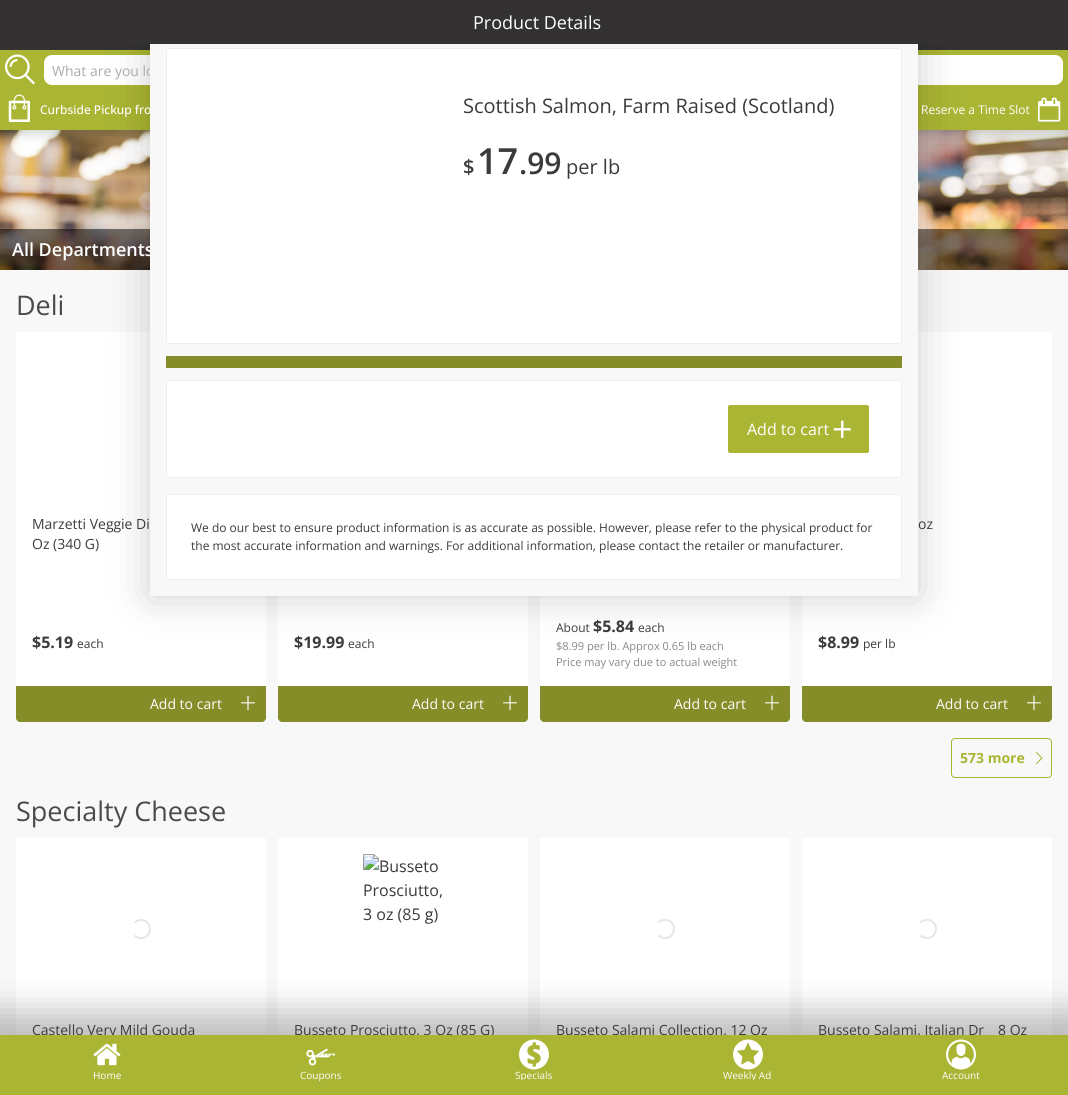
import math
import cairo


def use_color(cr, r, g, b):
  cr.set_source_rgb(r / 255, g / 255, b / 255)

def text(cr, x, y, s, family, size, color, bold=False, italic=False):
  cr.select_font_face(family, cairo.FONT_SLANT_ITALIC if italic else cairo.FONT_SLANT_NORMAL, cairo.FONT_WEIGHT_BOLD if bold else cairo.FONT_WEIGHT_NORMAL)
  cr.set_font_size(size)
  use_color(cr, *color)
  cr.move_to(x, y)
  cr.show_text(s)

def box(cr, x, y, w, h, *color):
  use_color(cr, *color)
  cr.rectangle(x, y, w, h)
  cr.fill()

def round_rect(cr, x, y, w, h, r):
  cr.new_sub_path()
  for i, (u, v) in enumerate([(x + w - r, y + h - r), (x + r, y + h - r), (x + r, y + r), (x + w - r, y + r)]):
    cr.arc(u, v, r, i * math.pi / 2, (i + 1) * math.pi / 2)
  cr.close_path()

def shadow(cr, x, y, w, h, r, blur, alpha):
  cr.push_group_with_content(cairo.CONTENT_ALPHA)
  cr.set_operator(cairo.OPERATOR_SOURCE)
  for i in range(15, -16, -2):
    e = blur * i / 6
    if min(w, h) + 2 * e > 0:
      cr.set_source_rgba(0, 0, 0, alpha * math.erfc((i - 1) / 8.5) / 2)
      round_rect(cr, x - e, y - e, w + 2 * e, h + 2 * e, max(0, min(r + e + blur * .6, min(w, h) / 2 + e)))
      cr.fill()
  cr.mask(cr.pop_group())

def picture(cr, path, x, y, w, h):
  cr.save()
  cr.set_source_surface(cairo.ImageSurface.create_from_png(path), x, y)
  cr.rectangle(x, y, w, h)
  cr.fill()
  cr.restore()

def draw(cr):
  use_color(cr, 248, 248, 248)
  cr.paint()
  picture(cr, "img_01.png", 0, 130, 1068, 140)
  cr.set_source_rgba(0, 0, 0, 0.5)
  cr.rectangle(0, 229, 1068, 41)
  cr.fill()
  use_color(cr, 255, 255, 255)
  cr.new_path()
  cr.move_to(16, 332)
  cr.line_to(266, 332)
  cr.line_to(266, 718)
  cr.curve_to(266, 720, 264, 722, 262, 722)
  cr.line_to(20, 722)
  cr.curve_to(18, 722, 16, 720, 16, 718)
  cr.close_path()
  cr.fill()
  cr.new_path()
  cr.move_to(278, 332)
  cr.line_to(528, 332)
  cr.line_to(528, 718)
  cr.curve_to(528, 720, 526, 722, 524, 722)
  cr.line_to(282, 722)
  cr.curve_to(280, 722, 278, 720, 278, 718)
  cr.close_path()
  cr.fill()
  cr.new_path()
  cr.move_to(540, 332)
  cr.line_to(790, 332)
  cr.line_to(790, 718)
  cr.curve_to(790, 720, 788, 722, 786, 722)
  cr.line_to(544, 722)
  cr.curve_to(542, 722, 540, 720, 540, 718)
  cr.close_path()
  cr.fill()
  cr.new_path()
  cr.move_to(802, 332)
  cr.line_to(1052, 332)
  cr.line_to(1052, 718)
  cr.curve_to(1052, 720, 1050, 722, 1048, 722)
  cr.line_to(806, 722)
  cr.curve_to(804, 722, 802, 720, 802, 718)
  cr.close_path()
  cr.fill()
  use_color(cr, 47, 79, 79)
  shadow(cr, 5, 5, 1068, 130, 0, 5, 0.2)
  box(cr, 0, 44, 1068, 6, 51, 49, 49)
  box(cr, 0, 50, 1068, 80, 169, 181, 51)
  use_color(cr, 255, 255, 255)
  round_rect(cr, 44, 55, 1019, 30, 8)
  cr.fill()
  use_color(cr, 0, 0, 0)
  shadow(cr, 150, 32, 768, 564, 0, 20, 0.2)
  box(cr, 0, 0, 1068, 44, 51, 49, 49)
  use_color(cr, 132, 141, 40)
  cr.new_path()
  cr.move_to(16, 686)
  cr.line_to(266, 686)
  cr.line_to(266, 718)
  cr.curve_to(266, 720, 264, 722, 262, 722)
  cr.line_to(20, 722)
  cr.curve_to(18, 722, 16, 720, 16, 718)
  cr.close_path()
  cr.fill()
  picture(cr, "img_02.png", 241, 695, 14, 15)
  cr.new_path()
  cr.move_to(278, 686)
  cr.line_to(528, 686)
  cr.line_to(528, 718)
  cr.curve_to(528, 720, 526, 722, 524, 722)
  cr.line_to(282, 722)
  cr.curve_to(280, 722, 278, 720, 278, 718)
  cr.close_path()
  cr.fill()
  picture(cr, "img_02.png", 503, 695, 14, 15)
  cr.new_path()
  cr.move_to(540, 686)
  cr.line_to(790, 686)
  cr.line_to(790, 718)
  cr.curve_to(790, 720, 788, 722, 786, 722)
  cr.line_to(544, 722)
  cr.curve_to(542, 722, 540, 720, 540, 718)
  cr.close_path()
  cr.fill()
  picture(cr, "img_02.png", 765, 695, 14, 15)
  cr.new_path()
  cr.move_to(802, 686)
  cr.line_to(1052, 686)
  cr.line_to(1052, 718)
  cr.curve_to(1052, 720, 1050, 722, 1048, 722)
  cr.line_to(806, 722)
  cr.curve_to(804, 722, 802, 720, 802, 718)
  cr.close_path()
  cr.fill()
  picture(cr, "img_02.png", 1027, 695, 14, 15)
  round_rect(cr, 951.5, 738.5, 100, 39, 3.5)
  use_color(cr, 169, 181, 51)
  cr.set_line_width(1)
  cr.stroke()
  picture(cr, "img_03.png", 1036, 752, 7, 13)
  box(cr, 16, 838, 250, 197, 255, 255, 255)
  cr.new_path()
  cr.move_to(134.5, 922.5)
  cr.curve_to(136.5, 921, 138.5, 920, 141, 920)
  cr.curve_to(151.5, 920, 153.5, 935.5, 143, 938)
  cr.curve_to(140, 938.5, 136.5, 937.5, 134.5, 935.5)
  use_color(cr, 230, 230, 230)
  cr.set_line_width(2)
  cr.stroke()
  box(cr, 278, 838, 250, 197, 255, 255, 255)
  picture(cr, "img_04.png", 363, 854, 79, 70)
  box(cr, 540, 838, 250, 197, 255, 255, 255)
  cr.new_path()
  cr.move_to(658.5, 922.5)
  cr.curve_to(660.5, 920.5, 664, 919.5, 667, 920)
  cr.curve_to(677.5, 922.5, 675.5, 938, 665, 938)
  cr.curve_to(662.5, 938, 660.5, 937, 658.5, 935.5)
  use_color(cr, 230, 230, 230)
  cr.stroke()
  box(cr, 802, 838, 250, 197, 255, 255, 255)
  cr.new_path()
  cr.move_to(920.5, 922.5)
  cr.curve_to(922.5, 920.5, 926, 919.5, 929, 920)
  cr.curve_to(939.5, 922.5, 937.5, 938, 927, 938)
  cr.curve_to(924.5, 938, 922.5, 937, 920.5, 935.5)
  use_color(cr, 230, 230, 230)
  cr.stroke()
  picture(cr, "img_05.png", 5, 54, 30, 31)
  picture(cr, "img_06.png", 8, 94, 22, 28)
  picture(cr, "img_07.png", 1038, 97, 23, 25)
  use_color(cr, 0, 0, 0)
  shadow(cr, -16, 1011, 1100, 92, 0, 16, 0.25)
  text(cr, 473, 29, "Product Details", "Open Sans", 18, (255, 255, 255))
  text(cr, 12, 256, "All Departments", "Open Sans SemiBold", 18, (255, 255, 255))
  text(cr, 16, 315, "Deli", "Open Sans", 27, (76, 75, 75))
  text(cr, 32, 529, "Marzetti Veggie Di", "Open Sans", 14, (60, 59, 59))
  text(cr, 32, 549, "Oz (340 G)", "Open Sans", 14, (60, 59, 59))
  text(cr, 32, 648, "$5.19", "Open Sans", 16, (60, 59, 59), bold=True)
  text(cr, 77, 648, "each", "Open Sans", 12, (60, 59, 59))
  text(cr, 150, 709, "Add to cart", "Open Sans", 14, (255, 255, 255))
  text(cr, 294, 648, "$19.99", "Open Sans", 16, (60, 59, 59), bold=True)
  text(cr, 348, 648, "each", "Open Sans", 12, (60, 59, 59))
  text(cr, 412, 709, "Add to cart", "Open Sans", 14, (255, 255, 255))
  text(cr, 556, 632, "About", "Open Sans", 12, (60, 59, 59))
  text(cr, 593, 632, "$5.84", "Open Sans", 16, (60, 59, 59), bold=True)
  text(cr, 638, 632, "each", "Open Sans", 12, (60, 59, 59))
  text(cr, 556, 650, "$8.99 per lb. Approx 0.65 lb each", "Open Sans", 11, (138, 137, 137))
  text(cr, 556, 666, "Price may vary due to actual weight", "Open Sans", 11, (138, 137, 137))
  text(cr, 674, 709, "Add to cart", "Open Sans", 14, (255, 255, 255))
  text(cr, 918, 529, "oz", "Open Sans", 14, (60, 59, 59))
  text(cr, 818, 648, "$8.99", "Open Sans", 16, (60, 59, 59), bold=True)
  text(cr, 863, 648, "per lb", "Open Sans", 12, (60, 59, 59))
  text(cr, 936, 709, "Add to cart", "Open Sans", 14, (255, 255, 255))
  text(cr, 960, 763, "573 more", "Open Sans", 14, (169, 181, 51), bold=True)
  text(cr, 16, 821, "Specialty Cheese", "Open Sans", 27, (76, 75, 75))
  text(cr, 32, 1035, "Castello Very Mild Gouda", "Open Sans", 14, (60, 59, 59))
  text(cr, 294, 1035, "Busseto Prosciutto, 3 Oz (85 G)", "Open Sans", 14, (60, 59, 59))
  text(cr, 556, 1035, "Busseto Salami Collection, 12 Oz", "Open Sans", 14, (60, 59, 59))
  text(cr, 818, 1035, "Busseto Salami, Italian Dr", "Open Sans", 14, (60, 59, 59))
  text(cr, 998, 1035, "8 Oz", "Open Sans", 14, (60, 59, 59))
  text(cr, 52, 76, "What are you lo", "Open Sans", 14, (170, 170, 170))
  text(cr, 40, 114, "Curbside Pickup fro", "Open Sans Medium", 12, (255, 255, 255))
  box(cr, 150, 44, 768, 552, 248, 248, 248)
  use_color(cr, 255, 255, 255)
  round_rect(cr, 166, 494, 736, 86, 3)
  cr.fill()
  round_rect(cr, 166.5, 494.5, 735, 85, 2.5)
  cr.set_source_rgba(0, 0, 0, 0.07)
  cr.set_line_width(1)
  cr.stroke()
  text(cr, 191, 550, "the most accurate information and warnings. For additional information, please contact the retailer or manufacturer.", "Open Sans", 12, (60, 59, 59))
  text(cr, 191, 532, "We do our best to ensure product information is as accurate as possible. However, please refer to the physical product for", "Open Sans", 12, (60, 59, 59))
  use_color(cr, 255, 255, 255)
  round_rect(cr, 166, 380, 736, 98, 3)
  cr.fill()
  round_rect(cr, 166.5, 380.5, 735, 97, 2.5)
  cr.set_source_rgba(0, 0, 0, 0.07)
  cr.stroke()
  use_color(cr, 169, 181, 51)
  round_rect(cr, 728, 405, 141, 48, 2)
  cr.fill()
  text(cr, 832, 442, "+", "Open Sans", 36, (255, 255, 255))
  text(cr, 747, 435, "Add to cart", "Open Sans", 16, (255, 255, 255))
  round_rect(cr, 166, 48, 736, 296, 3)
  cr.fill()
  round_rect(cr, 166.5, 48.5, 735, 295, 2.5)
  cr.set_source_rgba(0, 0, 0, 0.07)
  cr.stroke()
  text(cr, 519, 174, ".99", "Open Sans SemiBold", 30, (60, 59, 59))
  text(cr, 477, 174, "17", "Open Sans SemiBold", 36, (60, 59, 59))
  text(cr, 463, 174, "$", "Open Sans SemiBold", 20, (60, 59, 59))
  text(cr, 566, 174, "per lb", "Open Sans", 20, (60, 59, 59))
  text(cr, 463, 113, "Scottish Salmon, Farm Raised (Scotland)", "Open Sans", 20, (60, 59, 59))
  box(cr, 166, 356, 736, 12, 132, 141, 40)
  text(cr, 921, 114, "Reserve a Time Slot", "Open Sans", 12, (255, 255, 255))
  box(cr, 0, 1035, 1068, 60, 169, 181, 51)
  picture(cr, "img_08.png", 93, 1043, 28, 23)
  text(cr, 93, 1079, "Home", "Open Sans", 10, (255, 255, 255))
  picture(cr, "img_09.png", 306, 1048, 29, 18)
  text(cr, 300, 1079, "Coupons", "Open Sans", 10, (255, 255, 255))
  picture(cr, "img_10.png", 519, 1039, 30, 31)
  cr.save()
  cr.rectangle(504, 1035, 60, 45)
  cr.clip()
  text(cr, 515, 1079, "Specials", "Open Sans", 10, (255, 255, 255))
  cr.restore()
  picture(cr, "img_11.png", 733, 1039, 30, 31)
  cr.save()
  cr.rectangle(718, 1035, 60, 45)
  cr.clip()
  text(cr, 723, 1079, "Weekly Ad", "Open Sans", 10, (255, 255, 255))
  cr.restore()
  picture(cr, "img_12.png", 946, 1039, 30, 31)
  text(cr, 942, 1079, "Account", "Open Sans", 10, (255, 255, 255))


surface = cairo.ImageSurface(cairo.FORMAT_RGB24, 1068, 1095)
cr = cairo.Context(surface)
options = cairo.FontOptions()
options.set_hint_metrics(cairo.HINT_METRICS_OFF)
options.set_hint_style(cairo.HINT_STYLE_NONE)
cr.set_font_options(options)
cr.set_miter_limit(4)
draw(cr)
surface.write_to_png("out.png")
